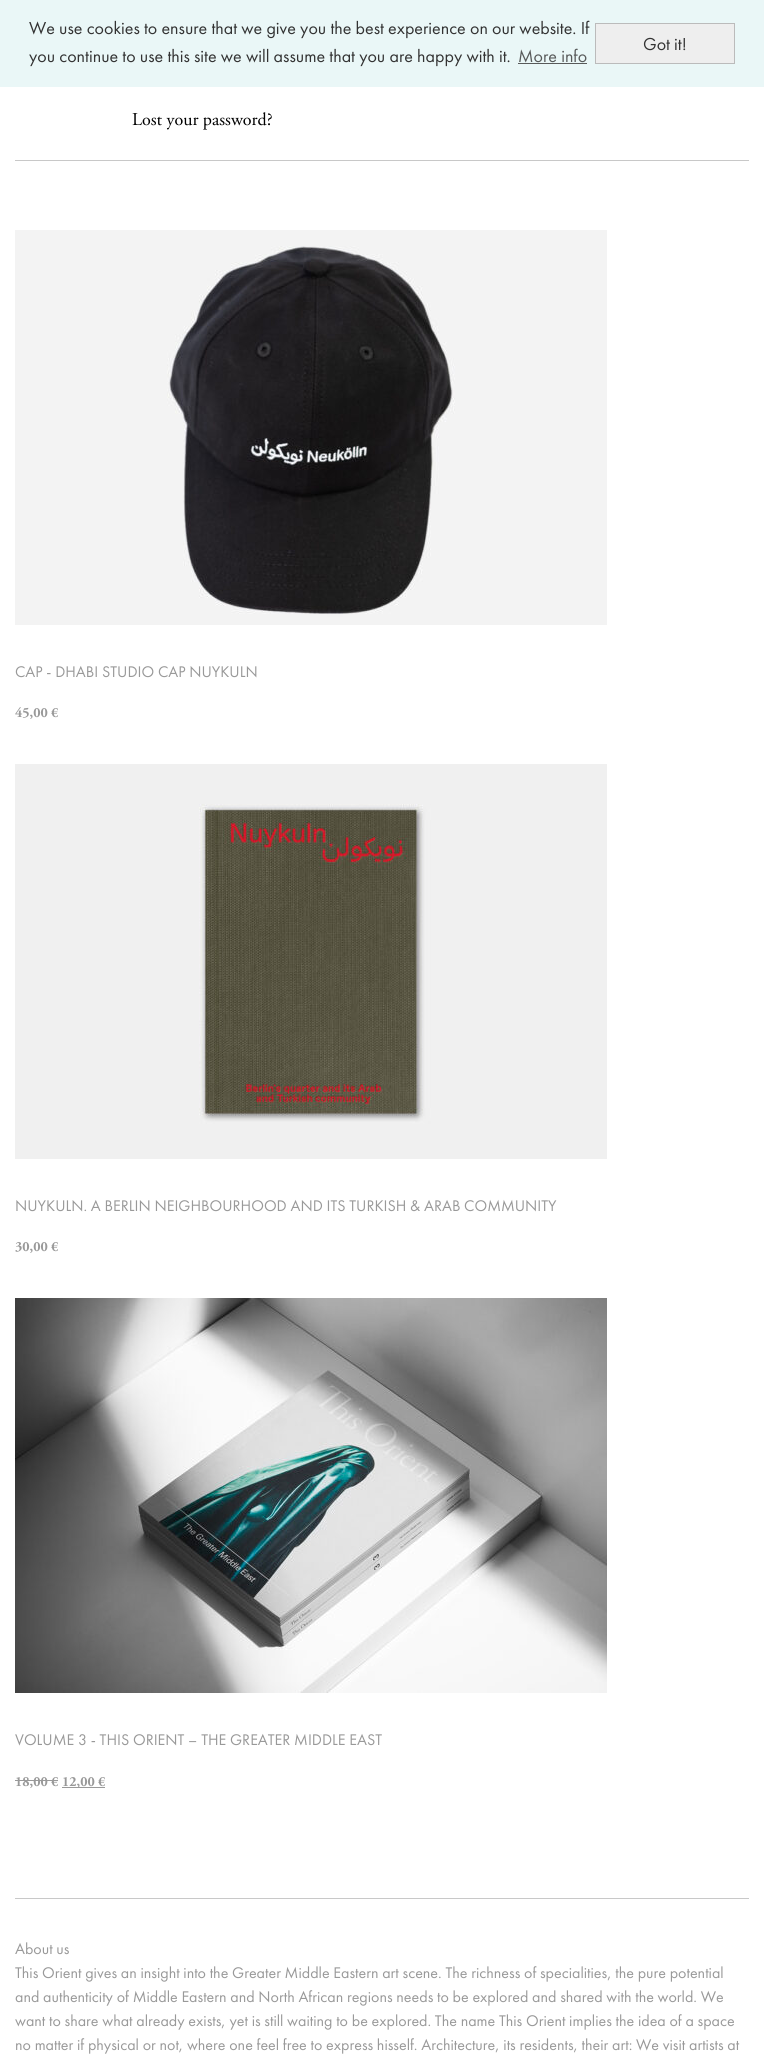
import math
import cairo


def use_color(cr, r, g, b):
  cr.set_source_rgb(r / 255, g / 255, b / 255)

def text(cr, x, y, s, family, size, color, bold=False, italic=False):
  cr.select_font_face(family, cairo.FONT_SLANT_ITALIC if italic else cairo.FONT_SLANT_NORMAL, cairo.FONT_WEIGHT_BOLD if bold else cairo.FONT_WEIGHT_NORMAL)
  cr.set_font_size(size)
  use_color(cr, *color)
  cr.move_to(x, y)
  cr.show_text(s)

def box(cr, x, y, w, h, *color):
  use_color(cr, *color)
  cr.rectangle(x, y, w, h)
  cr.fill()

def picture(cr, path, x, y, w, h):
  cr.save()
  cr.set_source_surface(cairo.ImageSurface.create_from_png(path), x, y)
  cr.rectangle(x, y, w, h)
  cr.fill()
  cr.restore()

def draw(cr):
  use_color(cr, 255, 255, 255)
  cr.paint()
  box(cr, 0, 0, 764, 87, 234, 247, 247)
  box(cr, 518, 63, 69, 1, 88, 90, 90)
  use_color(cr, 238, 238, 238)
  cr.rectangle(595.5, 23.5, 139, 40)
  cr.fill_preserve()
  use_color(cr, 187, 187, 187)
  cr.set_line_width(1)
  cr.stroke()
  box(cr, 15, 160, 734, 1, 200, 200, 200)
  picture(cr, "img_01.png", 15, 230, 592, 395)
  picture(cr, "img_02.png", 15, 764, 592, 395)
  picture(cr, "img_03.png", 15, 1298, 592, 395)
  box(cr, 15, 1780, 43, 1, 153, 153, 153)
  box(cr, 62, 1787, 43, 1, 153, 153, 153)
  box(cr, 15, 1898, 734, 1, 200, 200, 200)
  text(cr, 29, 34, "We use cookies to ensure that we give you the best experience on our website. If", "Futura PT", 18, (51, 51, 51))
  text(cr, 29, 62, "you continue to use this site we will assume that you are happy with it.", "Futura PT", 18, (51, 51, 51))
  text(cr, 518, 62, "More info", "Futura PT", 18, (88, 90, 90))
  text(cr, 643, 50, "Got it!", "Futura PT", 18, (51, 51, 51))
  text(cr, 132, 125, "Lost your password?", "Adobe Garamond", 18, (0, 0, 0))
  text(cr, 15, 677, "CAP - DHABI STUDIO CAP NUYKULN", "Futura PT", 16, (153, 153, 153))
  text(cr, 15, 717, "45,00 €", "Adobe Garamond", 14, (153, 153, 153), bold=True)
  text(cr, 15, 1211, "NUYKULN. A BERLIN NEIGHBOURHOOD AND ITS TURKISH & ARAB COMMUNITY", "Futura PT", 16, (153, 153, 153))
  text(cr, 15, 1251, "30,00 €", "Adobe Garamond", 14, (153, 153, 153), bold=True)
  text(cr, 15, 1745, "VOLUME 3 - THIS ORIENT – THE GREATER MIDDLE EAST", "Futura PT", 16, (153, 153, 153))
  text(cr, 15, 1786, "18,00 €", "Adobe Garamond", 14, (153, 153, 153), bold=True)
  text(cr, 62, 1786, "12,00 €", "Adobe Garamond", 14, (153, 153, 153), bold=True)
  text(cr, 15, 1954, "About us", "Futura PT", 16, (153, 153, 153))
  text(cr, 15, 1978, "This Orient gives an insight into the Greater Middle Eastern art scene. The richness of specialities, the pure potential", "Futura PT", 16, (153, 153, 153))
  text(cr, 15, 2002, "and authenticity of Middle Eastern and North African regions needs to be explored and shared with the world. We", "Futura PT", 16, (153, 153, 153))
  text(cr, 15, 2026, "want to share what already exists, yet is still waiting to be explored. The name This Orient implies the idea of a space", "Futura PT", 16, (153, 153, 153))
  text(cr, 15, 2050, "no matter if physical or not, where one feel free to express hisself. Architecture, its residents, their art: We visit artists at", "Futura PT", 16, (153, 153, 153))


surface = cairo.ImageSurface(cairo.FORMAT_RGB24, 764, 2061)
cr = cairo.Context(surface)
options = cairo.FontOptions()
options.set_hint_metrics(cairo.HINT_METRICS_OFF)
options.set_hint_style(cairo.HINT_STYLE_NONE)
cr.set_font_options(options)
cr.set_miter_limit(4)
draw(cr)
surface.write_to_png("out.png")
